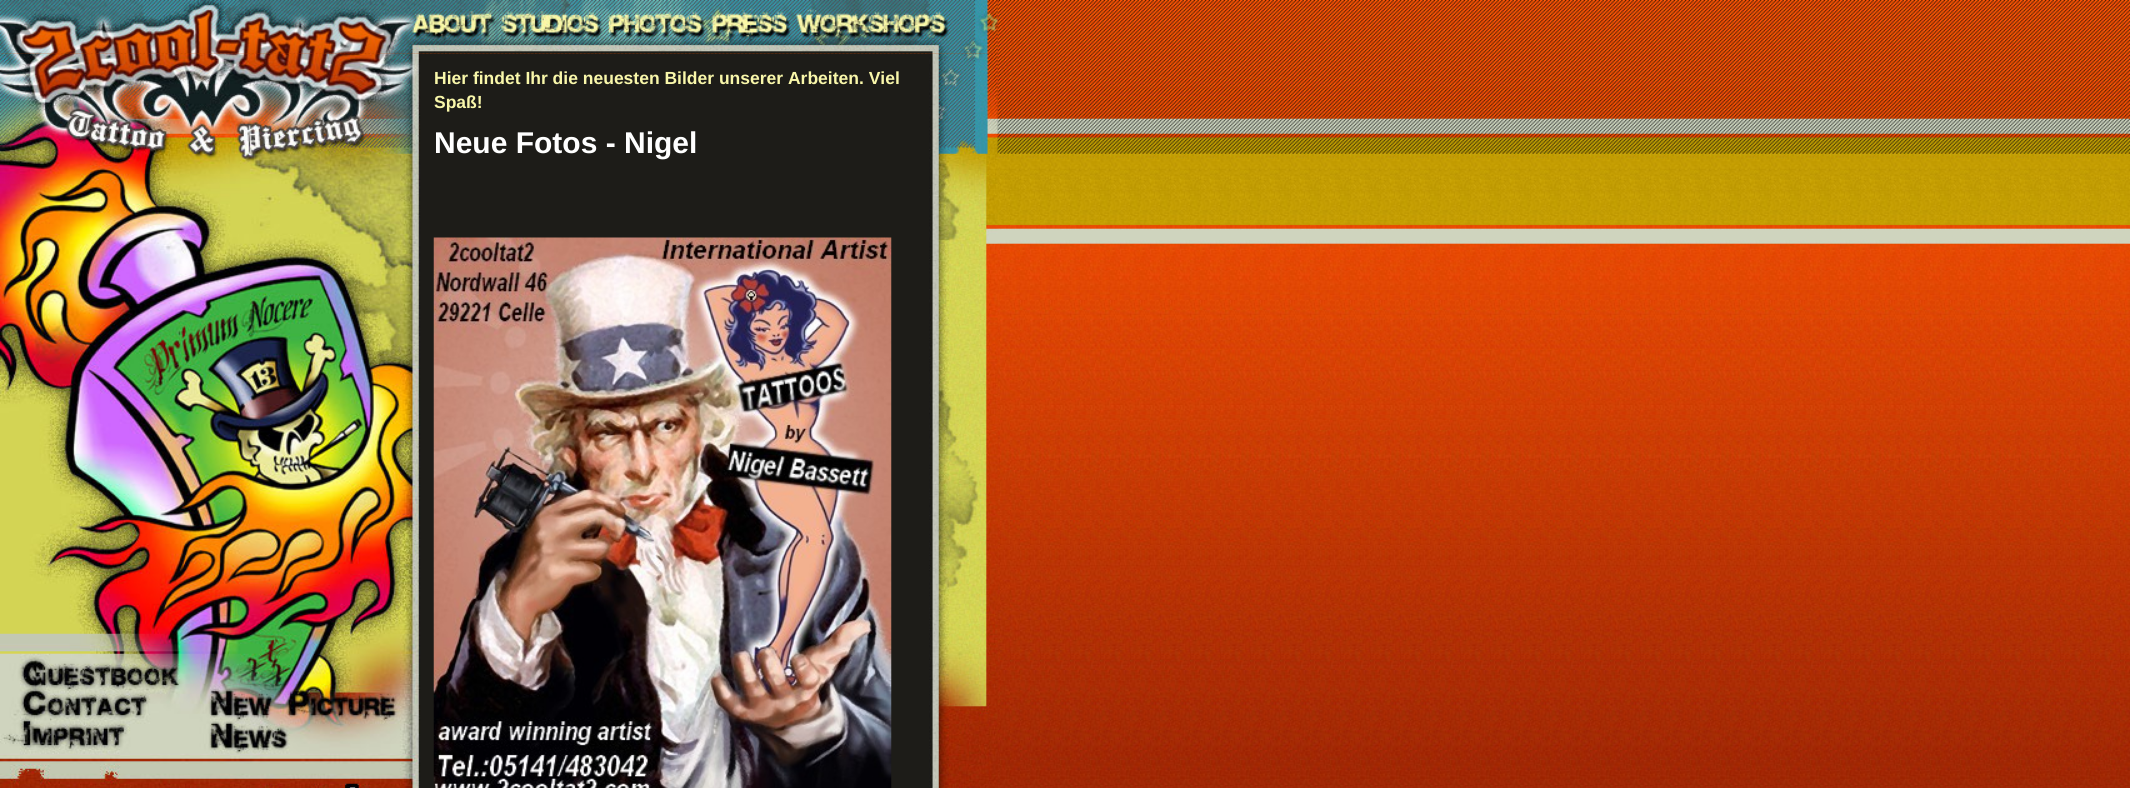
import math
import cairo


def use_color(cr, r, g, b):
  cr.set_source_rgb(r / 255, g / 255, b / 255)

def text(cr, x, y, s, family, size, color, bold=False, italic=False):
  cr.select_font_face(family, cairo.FONT_SLANT_ITALIC if italic else cairo.FONT_SLANT_NORMAL, cairo.FONT_WEIGHT_BOLD if bold else cairo.FONT_WEIGHT_NORMAL)
  cr.set_font_size(size)
  use_color(cr, *color)
  cr.move_to(x, y)
  cr.show_text(s)

def box(cr, x, y, w, h, *color):
  use_color(cr, *color)
  cr.rectangle(x, y, w, h)
  cr.fill()

def picture(cr, path, x, y, w, h):
  cr.save()
  cr.set_source_surface(cairo.ImageSurface.create_from_png(path), x, y)
  cr.rectangle(x, y, w, h)
  cr.fill()
  cr.restore()

def draw(cr):
  use_color(cr, 255, 255, 255)
  cr.paint()
  picture(cr, "img_01.png", 0, 0, 2130, 788)
  picture(cr, "img_02.png", 0, 0, 998, 54)
  picture(cr, "img_03.png", 0, 53, 421, 735)
  box(cr, 421, 54, 508, 734, 29, 28, 24)
  picture(cr, "img_04.png", 433, 237, 459, 551)
  picture(cr, "img_05.png", 929, 53, 69, 735)
  text(cr, 434, 84, "Hier findet Ihr die neuesten Bilder unserer Arbeiten. Viel", "Liberation Sans", 17.5, (249, 247, 170), bold=True)
  text(cr, 434, 108, "Spaß!", "Liberation Sans", 17.5, (249, 247, 170), bold=True)
  text(cr, 434, 153, "Neue Fotos - Nigel", "Liberation Sans", 30, (255, 255, 255), bold=True)


surface = cairo.ImageSurface(cairo.FORMAT_RGB24, 2130, 788)
cr = cairo.Context(surface)
options = cairo.FontOptions()
options.set_hint_metrics(cairo.HINT_METRICS_OFF)
options.set_hint_style(cairo.HINT_STYLE_NONE)
cr.set_font_options(options)
cr.set_miter_limit(4)
draw(cr)
surface.write_to_png("out.png")
